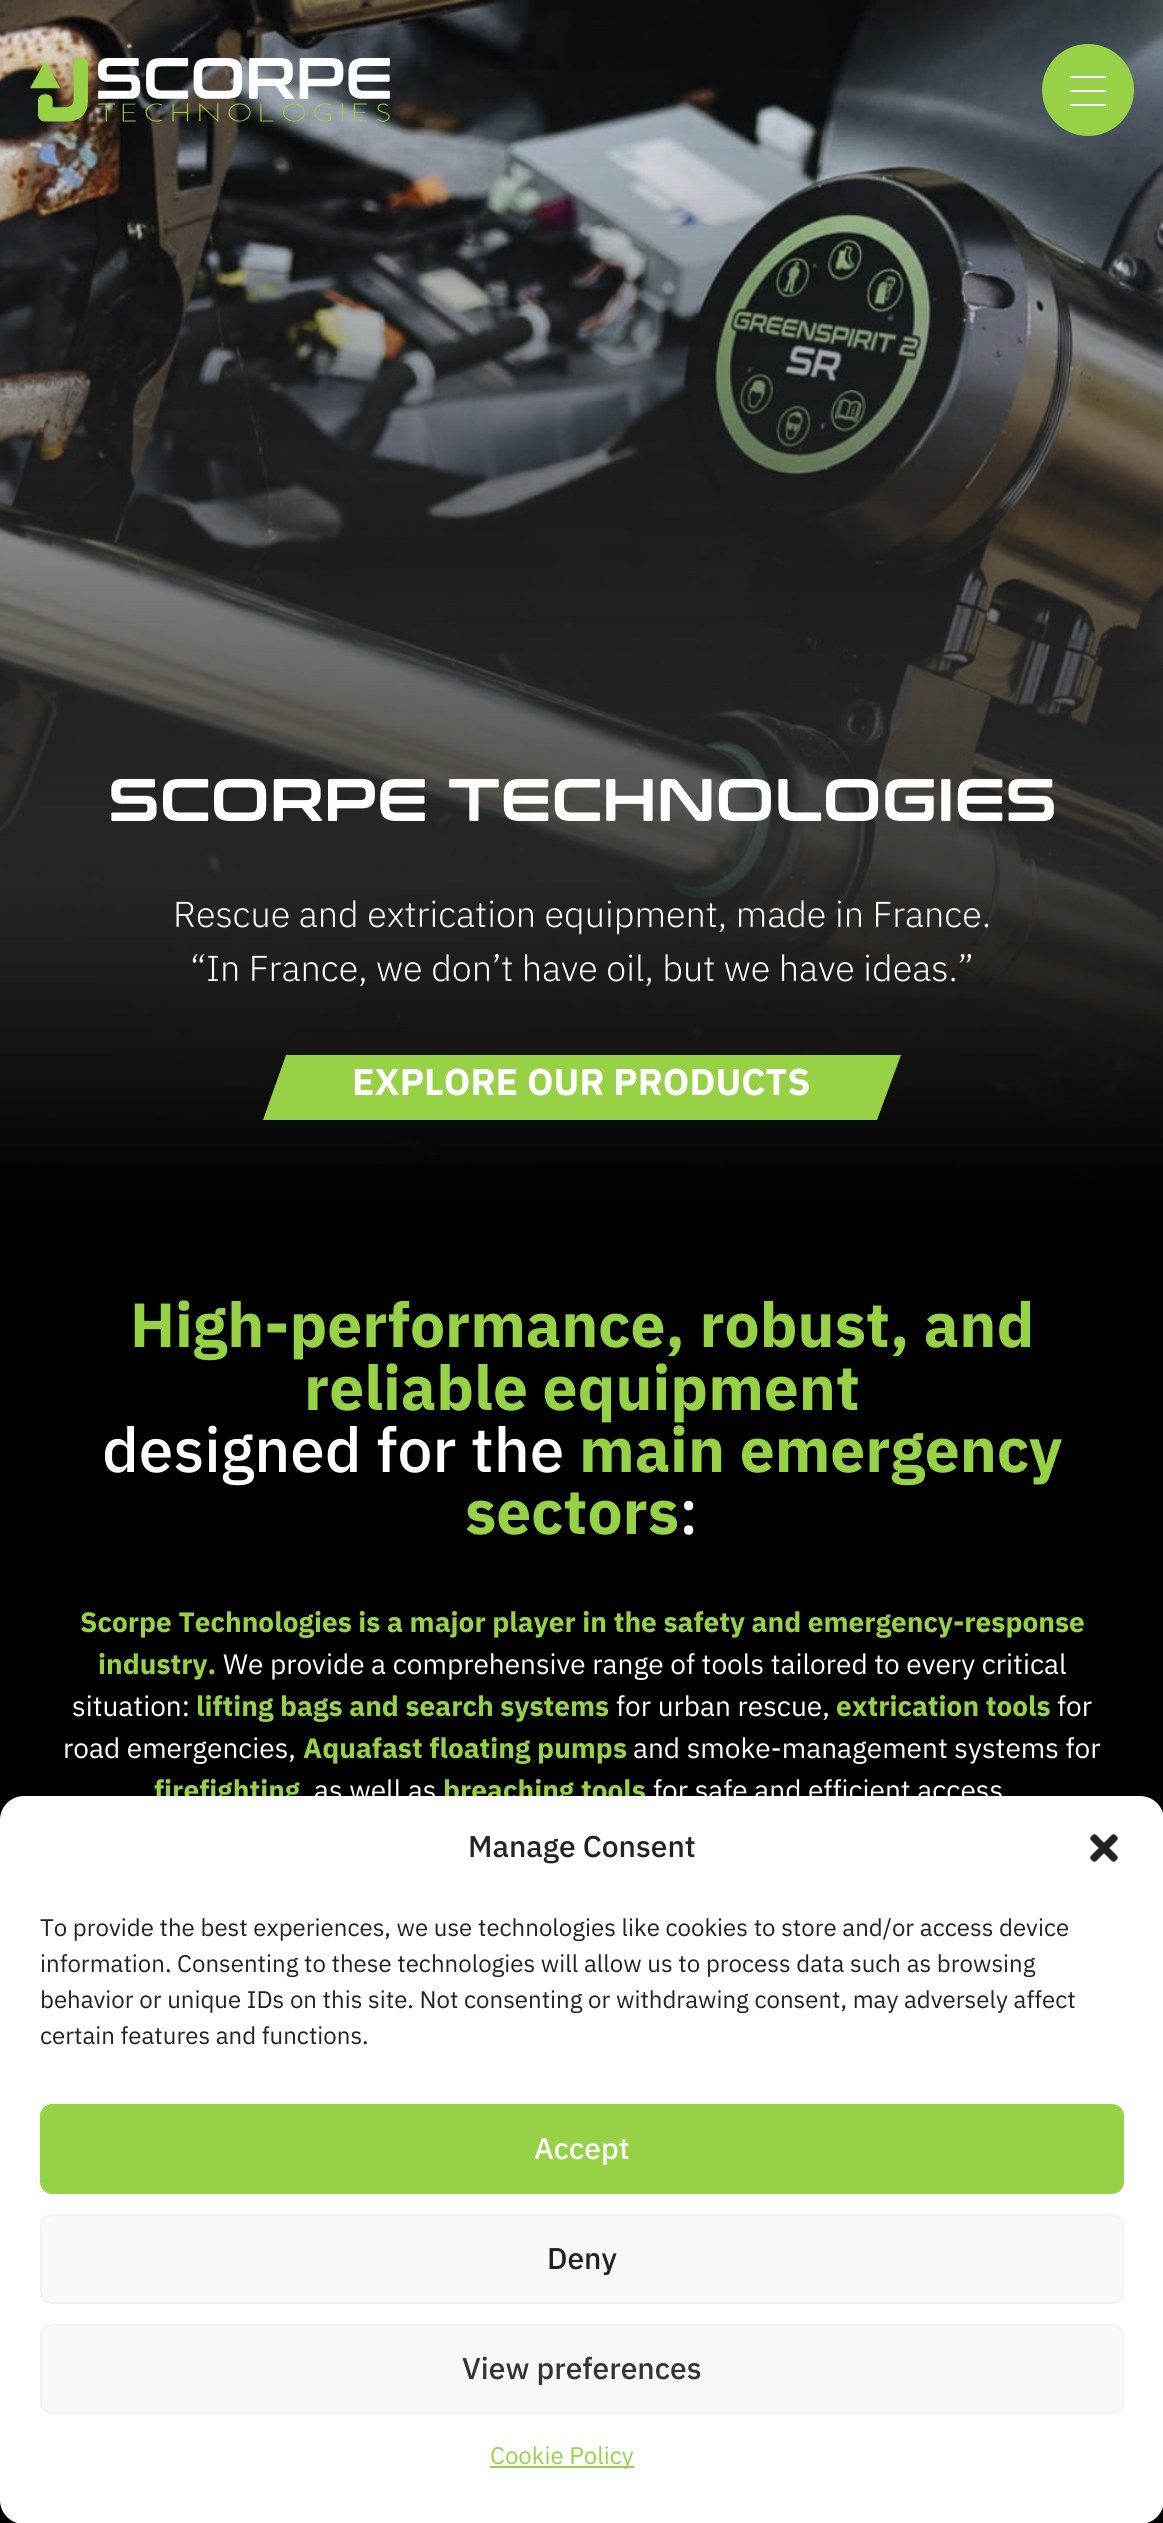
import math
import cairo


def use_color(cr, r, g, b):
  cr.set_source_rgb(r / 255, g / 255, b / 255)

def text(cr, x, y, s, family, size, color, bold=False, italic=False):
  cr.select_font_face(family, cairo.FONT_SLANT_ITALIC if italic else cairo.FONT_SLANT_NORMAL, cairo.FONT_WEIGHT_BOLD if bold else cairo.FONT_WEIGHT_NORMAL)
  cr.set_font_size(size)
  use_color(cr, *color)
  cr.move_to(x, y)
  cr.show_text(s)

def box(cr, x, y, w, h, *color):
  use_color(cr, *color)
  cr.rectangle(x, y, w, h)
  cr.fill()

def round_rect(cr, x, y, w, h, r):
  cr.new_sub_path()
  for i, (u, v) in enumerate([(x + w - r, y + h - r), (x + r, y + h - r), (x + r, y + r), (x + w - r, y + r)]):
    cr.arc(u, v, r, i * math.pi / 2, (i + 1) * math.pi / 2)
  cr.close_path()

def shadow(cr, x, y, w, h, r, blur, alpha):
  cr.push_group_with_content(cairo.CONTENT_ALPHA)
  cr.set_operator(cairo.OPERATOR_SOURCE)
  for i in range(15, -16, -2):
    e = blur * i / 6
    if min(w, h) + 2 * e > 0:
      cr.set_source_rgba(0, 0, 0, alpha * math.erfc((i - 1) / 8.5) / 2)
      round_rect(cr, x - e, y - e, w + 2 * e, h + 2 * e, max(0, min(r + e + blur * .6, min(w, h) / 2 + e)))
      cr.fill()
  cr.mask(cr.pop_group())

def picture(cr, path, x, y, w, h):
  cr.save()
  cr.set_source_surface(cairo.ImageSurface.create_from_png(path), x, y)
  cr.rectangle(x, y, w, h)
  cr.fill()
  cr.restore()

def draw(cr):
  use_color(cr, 255, 255, 255)
  cr.paint()
  picture(cr, "img_02.png", 0, 0, 1163, 1195)
  gradient = cairo.LinearGradient(582, 1200, 582, 40)
  gradient.add_color_stop_rgba(0, 0.027, 0.027, 0.027, 0.8)
  gradient.add_color_stop_rgba(0.3, 0.165, 0.165, 0.165, 0.6)
  gradient.add_color_stop_rgba(1, 0.165, 0.165, 0.165, 0)
  cr.set_source(gradient)
  cr.rectangle(0, 69, 1163, 1126)
  cr.fill()
  picture(cr, "img_01.png", 30, 58, 360, 64)
  use_color(cr, 151, 210, 70)
  cr.arc(1088, 90, 46, 0, 2 * math.pi)
  cr.fill()
  box(cr, 1070, 90, 36, 2, 255, 255, 255)
  box(cr, 1070, 76, 36, 2, 255, 255, 255)
  box(cr, 1070, 104, 36, 2, 255, 255, 255)
  gradient = cairo.LinearGradient(582, 120, 582, 1200)
  gradient.add_color_stop_rgba(0, 0.165, 0.165, 0.165, 0)
  gradient.add_color_stop_rgba(0.7, 0.165, 0.165, 0.165, 0.59)
  gradient.add_color_stop_rgba(1, 0, 0, 0, 1)
  cr.set_source(gradient)
  cr.rectangle(0, 148, 1163, 1052)
  cr.fill()
  use_color(cr, 151, 210, 70)
  cr.new_path()
  cr.move_to(286, 1055)
  cr.line_to(901, 1055)
  cr.line_to(877, 1120)
  cr.line_to(263, 1120)
  cr.close_path()
  cr.fill()
  box(cr, 0, 1200, 1163, 1323, 0, 0, 0)
  use_color(cr, 0, 0, 0)
  shadow(cr, 0, 1816, 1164, 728, 24, 20, 0.19)
  text(cr, 108, 821, "SCORPE TECHNOLOGIES", "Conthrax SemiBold", 60, (255, 255, 255))
  text(cr, 173, 927, "Rescue and extrication equipment, made in France.", "IBM Plex Sans Light", 36, (255, 255, 255))
  text(cr, 190, 981, "“In France, we don’t have oil, but we have ideas.”", "IBM Plex Sans Light", 36, (255, 255, 255))
  text(cr, 352, 1095, "EXPLORE OUR PRODUCTS", "IBM Plex Sans", 37.25, (255, 255, 255), bold=True)
  text(cr, 130, 1347, "High-performance, robust, and", "IBM Plex Sans", 62.25, (151, 210, 70), bold=True)
  text(cr, 304, 1410, "reliable equipment", "IBM Plex Sans", 62.25, (151, 210, 70), bold=True)
  text(cr, 102, 1472, "designed for the", "IBM Plex Sans Medium", 62.25, (255, 255, 255))
  text(cr, 579, 1472, "main emergency", "IBM Plex Sans", 62.25, (151, 210, 70), bold=True)
  text(cr, 465, 1534, "sectors", "IBM Plex Sans", 62.25, (151, 210, 70), bold=True)
  text(cr, 679, 1534, ":", "IBM Plex Sans Medium", 62.25, (255, 255, 255))
  text(cr, 80, 1632, "Scorpe Technologies is a major player in the safety and emergency-response", "IBM Plex Sans", 28, (151, 210, 70), bold=True)
  text(cr, 98, 1674, "industry.", "IBM Plex Sans", 28, (151, 210, 70), bold=True)
  text(cr, 223, 1674, "We provide a comprehensive range of tools tailored to every critical", "IBM Plex Sans", 28, (255, 255, 255))
  text(cr, 72, 1716, "situation:", "IBM Plex Sans", 28, (255, 255, 255))
  text(cr, 196, 1716, "lifting bags and search systems", "IBM Plex Sans", 28, (151, 210, 70), bold=True)
  text(cr, 616, 1716, "for urban rescue,", "IBM Plex Sans", 28, (255, 255, 255))
  text(cr, 836, 1716, "extrication tools", "IBM Plex Sans", 28, (151, 210, 70), bold=True)
  text(cr, 1057, 1716, "for", "IBM Plex Sans", 28, (255, 255, 255))
  text(cr, 63, 1758, "road emergencies,", "IBM Plex Sans", 28, (255, 255, 255))
  text(cr, 303, 1758, "Aquafast floating pumps", "IBM Plex Sans", 28, (151, 210, 70), bold=True)
  text(cr, 633, 1758, "and smoke-management systems for", "IBM Plex Sans", 28, (255, 255, 255))
  text(cr, 154, 1800, "firefighting", "IBM Plex Sans", 28, (151, 210, 70), bold=True)
  text(cr, 314, 1800, "as well as", "IBM Plex Sans", 28, (255, 255, 255))
  text(cr, 443, 1800, "breaching tools", "IBM Plex Sans", 28, (151, 210, 70), bold=True)
  text(cr, 653, 1800, "for safe and efficient access", "IBM Plex Sans", 28, (255, 255, 255))
  round_rect(cr, 0, 1796, 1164, 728, 24)
  cr.fill()
  text(cr, 468, 1857, "Manage Consent", "IBM Plex Sans Medium", 30, (34, 34, 34))
  picture(cr, "img_03.png", 1090, 1834, 28, 28)
  text(cr, 40, 1936, "To provide the best experiences, we use technologies like cookies to store and/or access device", "IBM Plex Sans", 24, (34, 34, 34))
  text(cr, 40, 1972, "information. Consenting to these technologies will allow us to process data such as browsing", "IBM Plex Sans", 24, (34, 34, 34))
  text(cr, 40, 2008, "behavior or unique IDs on this site. Not consenting or withdrawing consent, may adversely affect", "IBM Plex Sans", 24, (34, 34, 34))
  text(cr, 40, 2044, "certain features and functions.", "IBM Plex Sans", 24, (34, 34, 34))
  use_color(cr, 151, 210, 70)
  round_rect(cr, 41, 2105, 1082, 88, 11)
  cr.fill_preserve()
  cr.stroke()
  text(cr, 534, 2159, "Accept", "IBM Plex Sans Medium", 30, (255, 255, 255))
  use_color(cr, 249, 249, 249)
  round_rect(cr, 41, 2215, 1082, 88, 11)
  cr.fill_preserve()
  use_color(cr, 242, 242, 242)
  cr.stroke()
  text(cr, 547, 2269, "Deny", "IBM Plex Sans Medium", 30, (34, 34, 34))
  use_color(cr, 249, 249, 249)
  round_rect(cr, 41, 2325, 1082, 88, 11)
  cr.fill_preserve()
  use_color(cr, 242, 242, 242)
  cr.stroke()
  text(cr, 462, 2379, "View preferences", "IBM Plex Sans Medium", 30, (51, 51, 51))
  box(cr, 490, 2466, 144, 2, 151, 210, 70)
  text(cr, 490, 2464, "Cookie Policy", "IBM Plex Sans", 24, (151, 210, 70))


surface = cairo.ImageSurface(cairo.FORMAT_RGB24, 1163, 2523)
cr = cairo.Context(surface)
options = cairo.FontOptions()
options.set_hint_metrics(cairo.HINT_METRICS_OFF)
options.set_hint_style(cairo.HINT_STYLE_NONE)
cr.set_font_options(options)
cr.set_miter_limit(4)
draw(cr)
surface.write_to_png("out.png")
